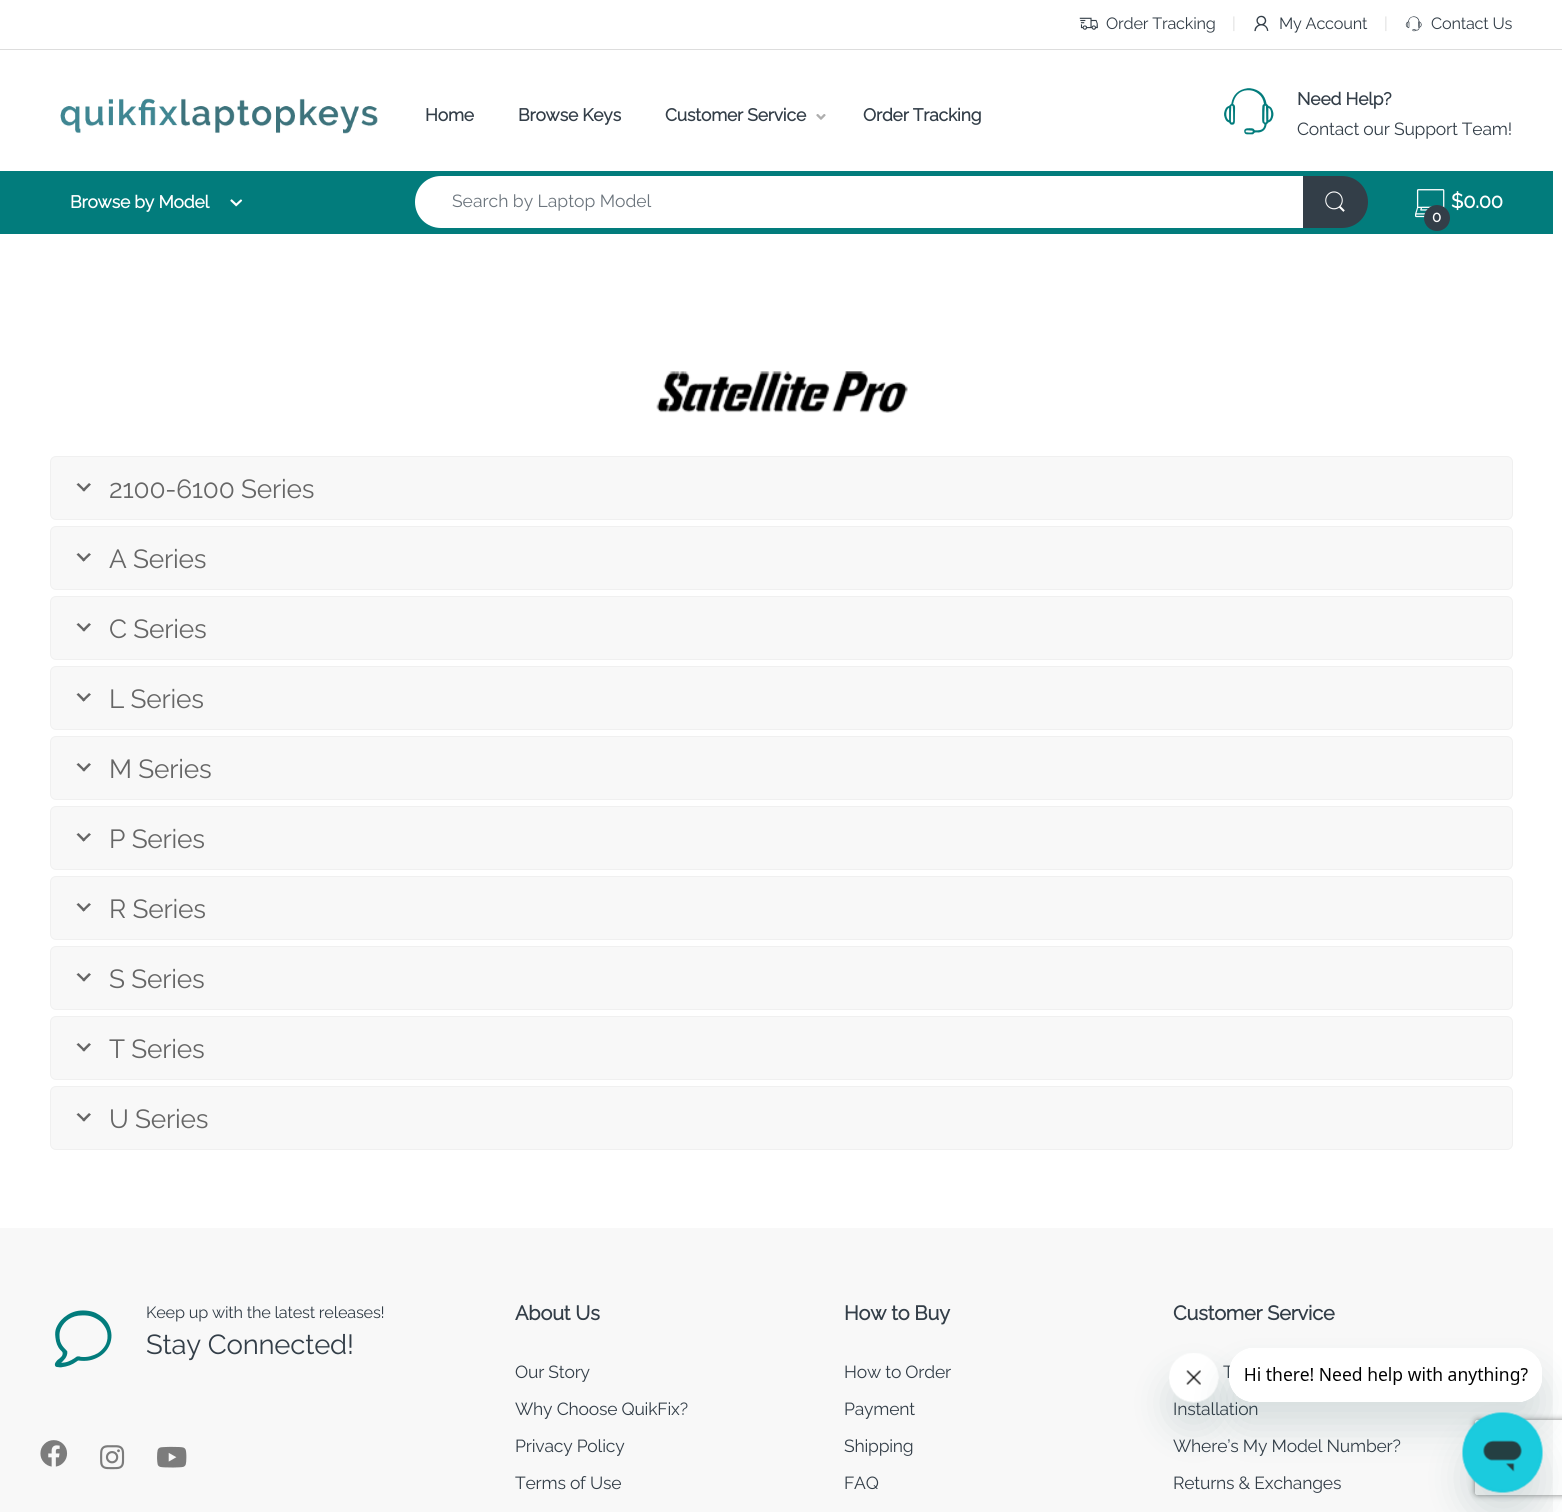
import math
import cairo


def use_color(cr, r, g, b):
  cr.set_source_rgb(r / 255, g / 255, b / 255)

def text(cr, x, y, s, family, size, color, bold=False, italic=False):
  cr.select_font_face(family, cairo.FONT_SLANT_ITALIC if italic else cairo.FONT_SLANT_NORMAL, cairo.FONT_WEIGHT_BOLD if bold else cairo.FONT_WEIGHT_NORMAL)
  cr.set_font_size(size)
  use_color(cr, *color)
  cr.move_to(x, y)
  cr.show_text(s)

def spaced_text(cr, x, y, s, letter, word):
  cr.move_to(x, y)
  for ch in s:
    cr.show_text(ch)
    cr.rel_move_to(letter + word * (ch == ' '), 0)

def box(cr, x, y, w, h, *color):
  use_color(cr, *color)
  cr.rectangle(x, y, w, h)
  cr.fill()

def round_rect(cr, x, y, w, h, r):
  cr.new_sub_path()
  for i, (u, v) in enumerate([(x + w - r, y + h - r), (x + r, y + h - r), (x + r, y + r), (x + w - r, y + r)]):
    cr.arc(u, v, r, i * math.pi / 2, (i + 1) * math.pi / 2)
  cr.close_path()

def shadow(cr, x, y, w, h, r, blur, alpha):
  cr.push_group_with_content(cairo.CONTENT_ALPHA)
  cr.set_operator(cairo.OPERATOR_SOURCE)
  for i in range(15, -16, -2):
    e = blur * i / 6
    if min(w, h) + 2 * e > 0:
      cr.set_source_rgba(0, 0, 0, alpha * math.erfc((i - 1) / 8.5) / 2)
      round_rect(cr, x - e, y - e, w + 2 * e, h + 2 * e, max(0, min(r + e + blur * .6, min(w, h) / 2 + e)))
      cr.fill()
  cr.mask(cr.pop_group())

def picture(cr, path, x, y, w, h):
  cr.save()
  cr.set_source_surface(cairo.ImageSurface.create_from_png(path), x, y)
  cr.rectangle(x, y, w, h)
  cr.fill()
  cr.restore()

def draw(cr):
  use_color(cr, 255, 255, 255)
  cr.paint()
  box(cr, 0, 49, 1562, 1, 221, 221, 221)
  picture(cr, "img_01.png", 1079, 17, 19, 13)
  picture(cr, "img_02.png", 1254, 15, 15, 17)
  picture(cr, "img_03.png", 1405, 16, 17, 16)
  picture(cr, "img_04.png", 60, 98, 318, 36)
  picture(cr, "img_05.png", 816, 114, 10, 6)
  picture(cr, "img_06.png", 1224, 88, 50, 47)
  box(cr, 0, 171, 1553, 63, 2, 124, 124)
  picture(cr, "img_07.png", 230, 199, 13, 8)
  use_color(cr, 255, 255, 255)
  cr.new_path()
  cr.move_to(441, 176)
  cr.line_to(1304, 176)
  cr.line_to(1304, 228)
  cr.line_to(441, 228)
  cr.curve_to(426.5, 228, 415, 216.5, 415, 202)
  cr.curve_to(415, 187.5, 426.5, 176, 441, 176)
  cr.close_path()
  cr.fill()
  use_color(cr, 51, 62, 72)
  cr.new_path()
  cr.move_to(1303, 176)
  cr.line_to(1342, 176)
  cr.curve_to(1356.5, 176, 1368, 187.5, 1368, 202)
  cr.curve_to(1368, 216.5, 1356.5, 228, 1342, 228)
  cr.line_to(1303, 228)
  cr.close_path()
  cr.fill()
  picture(cr, "img_08.png", 1325, 191, 20, 21)
  picture(cr, "img_09.png", 1415, 189, 30, 29)
  cr.arc(1437, 218, 13, 0, 2 * math.pi)
  cr.fill()
  picture(cr, "img_10.png", 656, 371, 252, 42)
  use_color(cr, 248, 248, 248)
  round_rect(cr, 50.5, 456.5, 1462, 63, 5.5)
  cr.fill_preserve()
  use_color(cr, 240, 240, 240)
  cr.set_line_width(1)
  cr.stroke()
  use_color(cr, 102, 102, 102)
  cr.new_path()
  cr.move_to(89, 483)
  cr.line_to(91, 484.5)
  cr.line_to(84, 491.5)
  cr.line_to(82, 490)
  cr.close_path()
  cr.fill()
  cr.new_path()
  cr.move_to(78.5, 483)
  cr.line_to(85.5, 490)
  cr.line_to(84, 491.5)
  cr.line_to(76.5, 484.5)
  cr.close_path()
  cr.fill()
  use_color(cr, 248, 248, 248)
  round_rect(cr, 50.5, 526.5, 1462, 63, 5.5)
  cr.fill_preserve()
  use_color(cr, 240, 240, 240)
  cr.stroke()
  use_color(cr, 102, 102, 102)
  cr.new_path()
  cr.move_to(89, 553)
  cr.line_to(91, 554.5)
  cr.line_to(83.5, 561.5)
  cr.line_to(82, 560)
  cr.close_path()
  cr.fill()
  cr.new_path()
  cr.move_to(78.5, 553)
  cr.line_to(85.5, 560)
  cr.line_to(83.5, 561.5)
  cr.line_to(76.5, 554.5)
  cr.close_path()
  cr.fill()
  use_color(cr, 248, 248, 248)
  round_rect(cr, 50.5, 596.5, 1462, 63, 5.5)
  cr.fill_preserve()
  use_color(cr, 240, 240, 240)
  cr.stroke()
  use_color(cr, 102, 102, 102)
  cr.new_path()
  cr.move_to(89, 623)
  cr.line_to(91, 624.5)
  cr.line_to(84, 631.5)
  cr.line_to(82, 630)
  cr.close_path()
  cr.fill()
  cr.new_path()
  cr.move_to(78.5, 623)
  cr.line_to(85.5, 630)
  cr.line_to(84, 631.5)
  cr.line_to(76.5, 624.5)
  cr.close_path()
  cr.fill()
  use_color(cr, 248, 248, 248)
  round_rect(cr, 50.5, 666.5, 1462, 63, 5.5)
  cr.fill_preserve()
  use_color(cr, 240, 240, 240)
  cr.stroke()
  use_color(cr, 102, 102, 102)
  cr.new_path()
  cr.move_to(89, 693)
  cr.line_to(91, 694.5)
  cr.line_to(83.5, 701.5)
  cr.line_to(82, 700)
  cr.close_path()
  cr.fill()
  cr.new_path()
  cr.move_to(78.5, 693)
  cr.line_to(85.5, 700)
  cr.line_to(83.5, 701.5)
  cr.line_to(76.5, 694.5)
  cr.close_path()
  cr.fill()
  use_color(cr, 248, 248, 248)
  round_rect(cr, 50.5, 736.5, 1462, 63, 5.5)
  cr.fill_preserve()
  use_color(cr, 240, 240, 240)
  cr.stroke()
  use_color(cr, 102, 102, 102)
  cr.new_path()
  cr.move_to(89, 763)
  cr.line_to(91, 764.5)
  cr.line_to(84, 771.5)
  cr.line_to(82, 770)
  cr.close_path()
  cr.fill()
  cr.new_path()
  cr.move_to(78.5, 763)
  cr.line_to(85.5, 770)
  cr.line_to(84, 771.5)
  cr.line_to(76.5, 764.5)
  cr.close_path()
  cr.fill()
  use_color(cr, 248, 248, 248)
  round_rect(cr, 50.5, 806.5, 1462, 63, 5.5)
  cr.fill_preserve()
  use_color(cr, 240, 240, 240)
  cr.stroke()
  use_color(cr, 102, 102, 102)
  cr.new_path()
  cr.move_to(89, 833)
  cr.line_to(91, 834.5)
  cr.line_to(83.5, 841.5)
  cr.line_to(82, 840)
  cr.close_path()
  cr.fill()
  cr.new_path()
  cr.move_to(78.5, 833)
  cr.line_to(85.5, 840)
  cr.line_to(83.5, 841.5)
  cr.line_to(76.5, 834.5)
  cr.close_path()
  cr.fill()
  use_color(cr, 248, 248, 248)
  round_rect(cr, 50.5, 876.5, 1462, 63, 5.5)
  cr.fill_preserve()
  use_color(cr, 240, 240, 240)
  cr.stroke()
  use_color(cr, 102, 102, 102)
  cr.new_path()
  cr.move_to(89, 903)
  cr.line_to(91, 904.5)
  cr.line_to(83.5, 911.5)
  cr.line_to(82, 910)
  cr.close_path()
  cr.fill()
  cr.new_path()
  cr.move_to(78.5, 903)
  cr.line_to(85.5, 910)
  cr.line_to(83.5, 911.5)
  cr.line_to(76.5, 904.5)
  cr.close_path()
  cr.fill()
  use_color(cr, 248, 248, 248)
  round_rect(cr, 50.5, 946.5, 1462, 63, 5.5)
  cr.fill_preserve()
  use_color(cr, 240, 240, 240)
  cr.stroke()
  use_color(cr, 102, 102, 102)
  cr.new_path()
  cr.move_to(89, 973)
  cr.line_to(91, 974.5)
  cr.line_to(84, 981.5)
  cr.line_to(82, 980)
  cr.close_path()
  cr.fill()
  cr.new_path()
  cr.move_to(78.5, 973)
  cr.line_to(85.5, 980)
  cr.line_to(84, 981.5)
  cr.line_to(76.5, 974.5)
  cr.close_path()
  cr.fill()
  use_color(cr, 248, 248, 248)
  round_rect(cr, 50.5, 1016.5, 1462, 63, 5.5)
  cr.fill_preserve()
  use_color(cr, 240, 240, 240)
  cr.stroke()
  use_color(cr, 102, 102, 102)
  cr.new_path()
  cr.move_to(89, 1043)
  cr.line_to(91, 1044.5)
  cr.line_to(84, 1051.5)
  cr.line_to(82, 1050)
  cr.close_path()
  cr.fill()
  cr.new_path()
  cr.move_to(78.5, 1043)
  cr.line_to(85.5, 1050)
  cr.line_to(84, 1051.5)
  cr.line_to(76.5, 1044.5)
  cr.close_path()
  cr.fill()
  use_color(cr, 248, 248, 248)
  round_rect(cr, 50.5, 1086.5, 1462, 63, 5.5)
  cr.fill_preserve()
  use_color(cr, 240, 240, 240)
  cr.stroke()
  use_color(cr, 102, 102, 102)
  cr.new_path()
  cr.move_to(89, 1113)
  cr.line_to(91, 1114.5)
  cr.line_to(84, 1121.5)
  cr.line_to(82, 1120)
  cr.close_path()
  cr.fill()
  cr.new_path()
  cr.move_to(78.5, 1113)
  cr.line_to(85.5, 1120)
  cr.line_to(84, 1121.5)
  cr.line_to(76.5, 1114.5)
  cr.close_path()
  cr.fill()
  box(cr, 0, 1228, 1553, 284, 248, 248, 248)
  picture(cr, "img_11.png", 54, 1310, 58, 58)
  picture(cr, "img_12.png", 40, 1440, 28, 27)
  picture(cr, "img_13.png", 100, 1445, 25, 25)
  picture(cr, "img_14.png", 157, 1446, 30, 22)
  use_color(cr, 23, 73, 77)
  shadow(cr, 1169, 1378, 50, 50, 25, 19, 0.15)
  cr.save()
  cr.set_fill_rule(cairo.FILL_RULE_EVEN_ODD)
  cr.new_path()
  cr.move_to(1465, 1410)
  cr.line_to(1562, 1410)
  cr.line_to(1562, 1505)
  cr.line_to(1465, 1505)
  cr.close_path()
  cr.move_to(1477.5, 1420)
  cr.line_to(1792.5, 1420)
  cr.curve_to(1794, 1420, 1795, 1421, 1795, 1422.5)
  cr.line_to(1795, 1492.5)
  cr.curve_to(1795, 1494, 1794, 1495, 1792.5, 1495)
  cr.line_to(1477.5, 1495)
  cr.curve_to(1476, 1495, 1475, 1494, 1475, 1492.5)
  cr.line_to(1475, 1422.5)
  cr.curve_to(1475, 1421, 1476, 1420, 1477.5, 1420)
  cr.close_path()
  cr.clip()
  use_color(cr, 128, 128, 128)
  shadow(cr, 1475, 1420, 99, 75, 2.5, 3, 1)
  cr.restore()
  cr.select_font_face("Raleway Thin")
  cr.set_font_size(16.25)
  use_color(cr, 51, 62, 72)
  spaced_text(cr, 1106, 29, "Order Tracking", -0.2, 0)
  use_color(cr, 221, 221, 221)
  spaced_text(cr, 1232, 29, "|", -0.2, 0)
  use_color(cr, 51, 62, 72)
  spaced_text(cr, 1279, 29, "My Account", -0.2, 0)
  use_color(cr, 221, 221, 221)
  spaced_text(cr, 1384, 29, "|", -0.2, 0)
  use_color(cr, 51, 62, 72)
  spaced_text(cr, 1431, 29, "Contact Us", -0.2, 0)
  cr.select_font_face("Raleway", cairo.FONT_SLANT_NORMAL, cairo.FONT_WEIGHT_BOLD)
  cr.set_font_size(17.5)
  spaced_text(cr, 425, 121, "Home", -0.2, 0)
  spaced_text(cr, 518, 121, "Browse Keys", -0.2, 0)
  spaced_text(cr, 665, 121, "Customer Service", -0.2, 0)
  spaced_text(cr, 863, 121, "Order Tracking", -0.2, 0)
  spaced_text(cr, 1297, 105, "Need Help?", -0.2, 0)
  cr.select_font_face("Raleway Thin")
  spaced_text(cr, 1297, 135, "Contact our Support Team!", -0.2, 0)
  cr.select_font_face("Raleway", cairo.FONT_SLANT_NORMAL, cairo.FONT_WEIGHT_BOLD)
  use_color(cr, 255, 255, 255)
  spaced_text(cr, 70, 208, "Browse by Model", -0.2, 0)
  text(cr, 452, 207, "Search by Laptop Model", "Raleway Thin", 17.5, (108, 117, 125))
  cr.select_font_face("Raleway", cairo.FONT_SLANT_NORMAL, cairo.FONT_WEIGHT_BOLD)
  cr.set_font_size(20)
  use_color(cr, 255, 255, 255)
  spaced_text(cr, 1451, 208, "$0.00", -0.2, 0)
  cr.set_font_size(15)
  spaced_text(cr, 1432, 222, "0", -0.2, 0)
  cr.select_font_face("Raleway Thin")
  cr.set_font_size(26.25)
  use_color(cr, 102, 102, 102)
  spaced_text(cr, 109, 498, "2100-6100 Series", -0.2, 0)
  spaced_text(cr, 109, 568, "A Series", -0.2, 0)
  spaced_text(cr, 109, 638, "C Series", -0.2, 0)
  spaced_text(cr, 109, 708, "L Series", -0.2, 0)
  spaced_text(cr, 109, 778, "M Series", -0.2, 0)
  spaced_text(cr, 109, 848, "P Series", -0.2, 0)
  spaced_text(cr, 109, 918, "R Series", -0.2, 0)
  spaced_text(cr, 109, 988, "S Series", -0.2, 0)
  spaced_text(cr, 109, 1058, "T Series", -0.2, 0)
  spaced_text(cr, 109, 1128, "U Series", -0.2, 0)
  cr.set_font_size(16.25)
  use_color(cr, 51, 62, 72)
  spaced_text(cr, 146, 1318, "Keep up with the latest releases!", -0.2, 0)
  cr.set_font_size(27.5)
  spaced_text(cr, 146, 1354, "Stay Connected!", -0.2, 0)
  cr.select_font_face("Raleway", cairo.FONT_SLANT_NORMAL, cairo.FONT_WEIGHT_BOLD)
  cr.set_font_size(20)
  spaced_text(cr, 515, 1320, "About Us", -0.2, 0)
  cr.select_font_face("Raleway Thin")
  cr.set_font_size(17.5)
  spaced_text(cr, 515, 1378, "Our Story", -0.2, 0)
  spaced_text(cr, 515, 1415, "Why Choose QuikFix?", -0.2, 0)
  spaced_text(cr, 515, 1452, "Privacy Policy", -0.2, 0)
  spaced_text(cr, 515, 1489, "Terms of Use", -0.2, 0)
  cr.select_font_face("Raleway", cairo.FONT_SLANT_NORMAL, cairo.FONT_WEIGHT_BOLD)
  cr.set_font_size(20)
  spaced_text(cr, 844, 1320, "How to Buy", -0.2, 0)
  cr.select_font_face("Raleway Thin")
  cr.set_font_size(17.5)
  spaced_text(cr, 844, 1378, "How to Order", -0.2, 0)
  spaced_text(cr, 844, 1415, "Payment", -0.2, 0)
  spaced_text(cr, 844, 1452, "Shipping", -0.2, 0)
  spaced_text(cr, 844, 1489, "FAQ", -0.2, 0)
  cr.select_font_face("Raleway", cairo.FONT_SLANT_NORMAL, cairo.FONT_WEIGHT_BOLD)
  cr.set_font_size(20)
  spaced_text(cr, 1173, 1320, "Customer Service", -0.2, 0)
  cr.select_font_face("Raleway Thin")
  cr.set_font_size(17.5)
  spaced_text(cr, 1223, 1378, "T", -0.2, 0)
  spaced_text(cr, 1173, 1415, "Installation", -0.2, 0)
  spaced_text(cr, 1173, 1452, "Where’s My Model Number?", -0.2, 0)
  spaced_text(cr, 1173, 1489, "Returns & Exchanges", -0.2, 0)
  picture(cr, "img_16.png", 1169, 1353, 50, 50)
  use_color(cr, 23, 73, 77)
  shadow(cr, 1229, 1373, 314, 55, 25, 19, 0.15)
  picture(cr, "img_15.png", 1229, 1348, 313, 54)
  shadow(cr, 1463, 1438, 80, 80, 40, 19, 0.15)
  picture(cr, "img_17.png", 1462, 1412, 81, 81)


surface = cairo.ImageSurface(cairo.FORMAT_RGB24, 1562, 1512)
cr = cairo.Context(surface)
options = cairo.FontOptions()
options.set_hint_metrics(cairo.HINT_METRICS_OFF)
options.set_hint_style(cairo.HINT_STYLE_NONE)
cr.set_font_options(options)
cr.set_miter_limit(4)
draw(cr)
surface.write_to_png("out.png")
